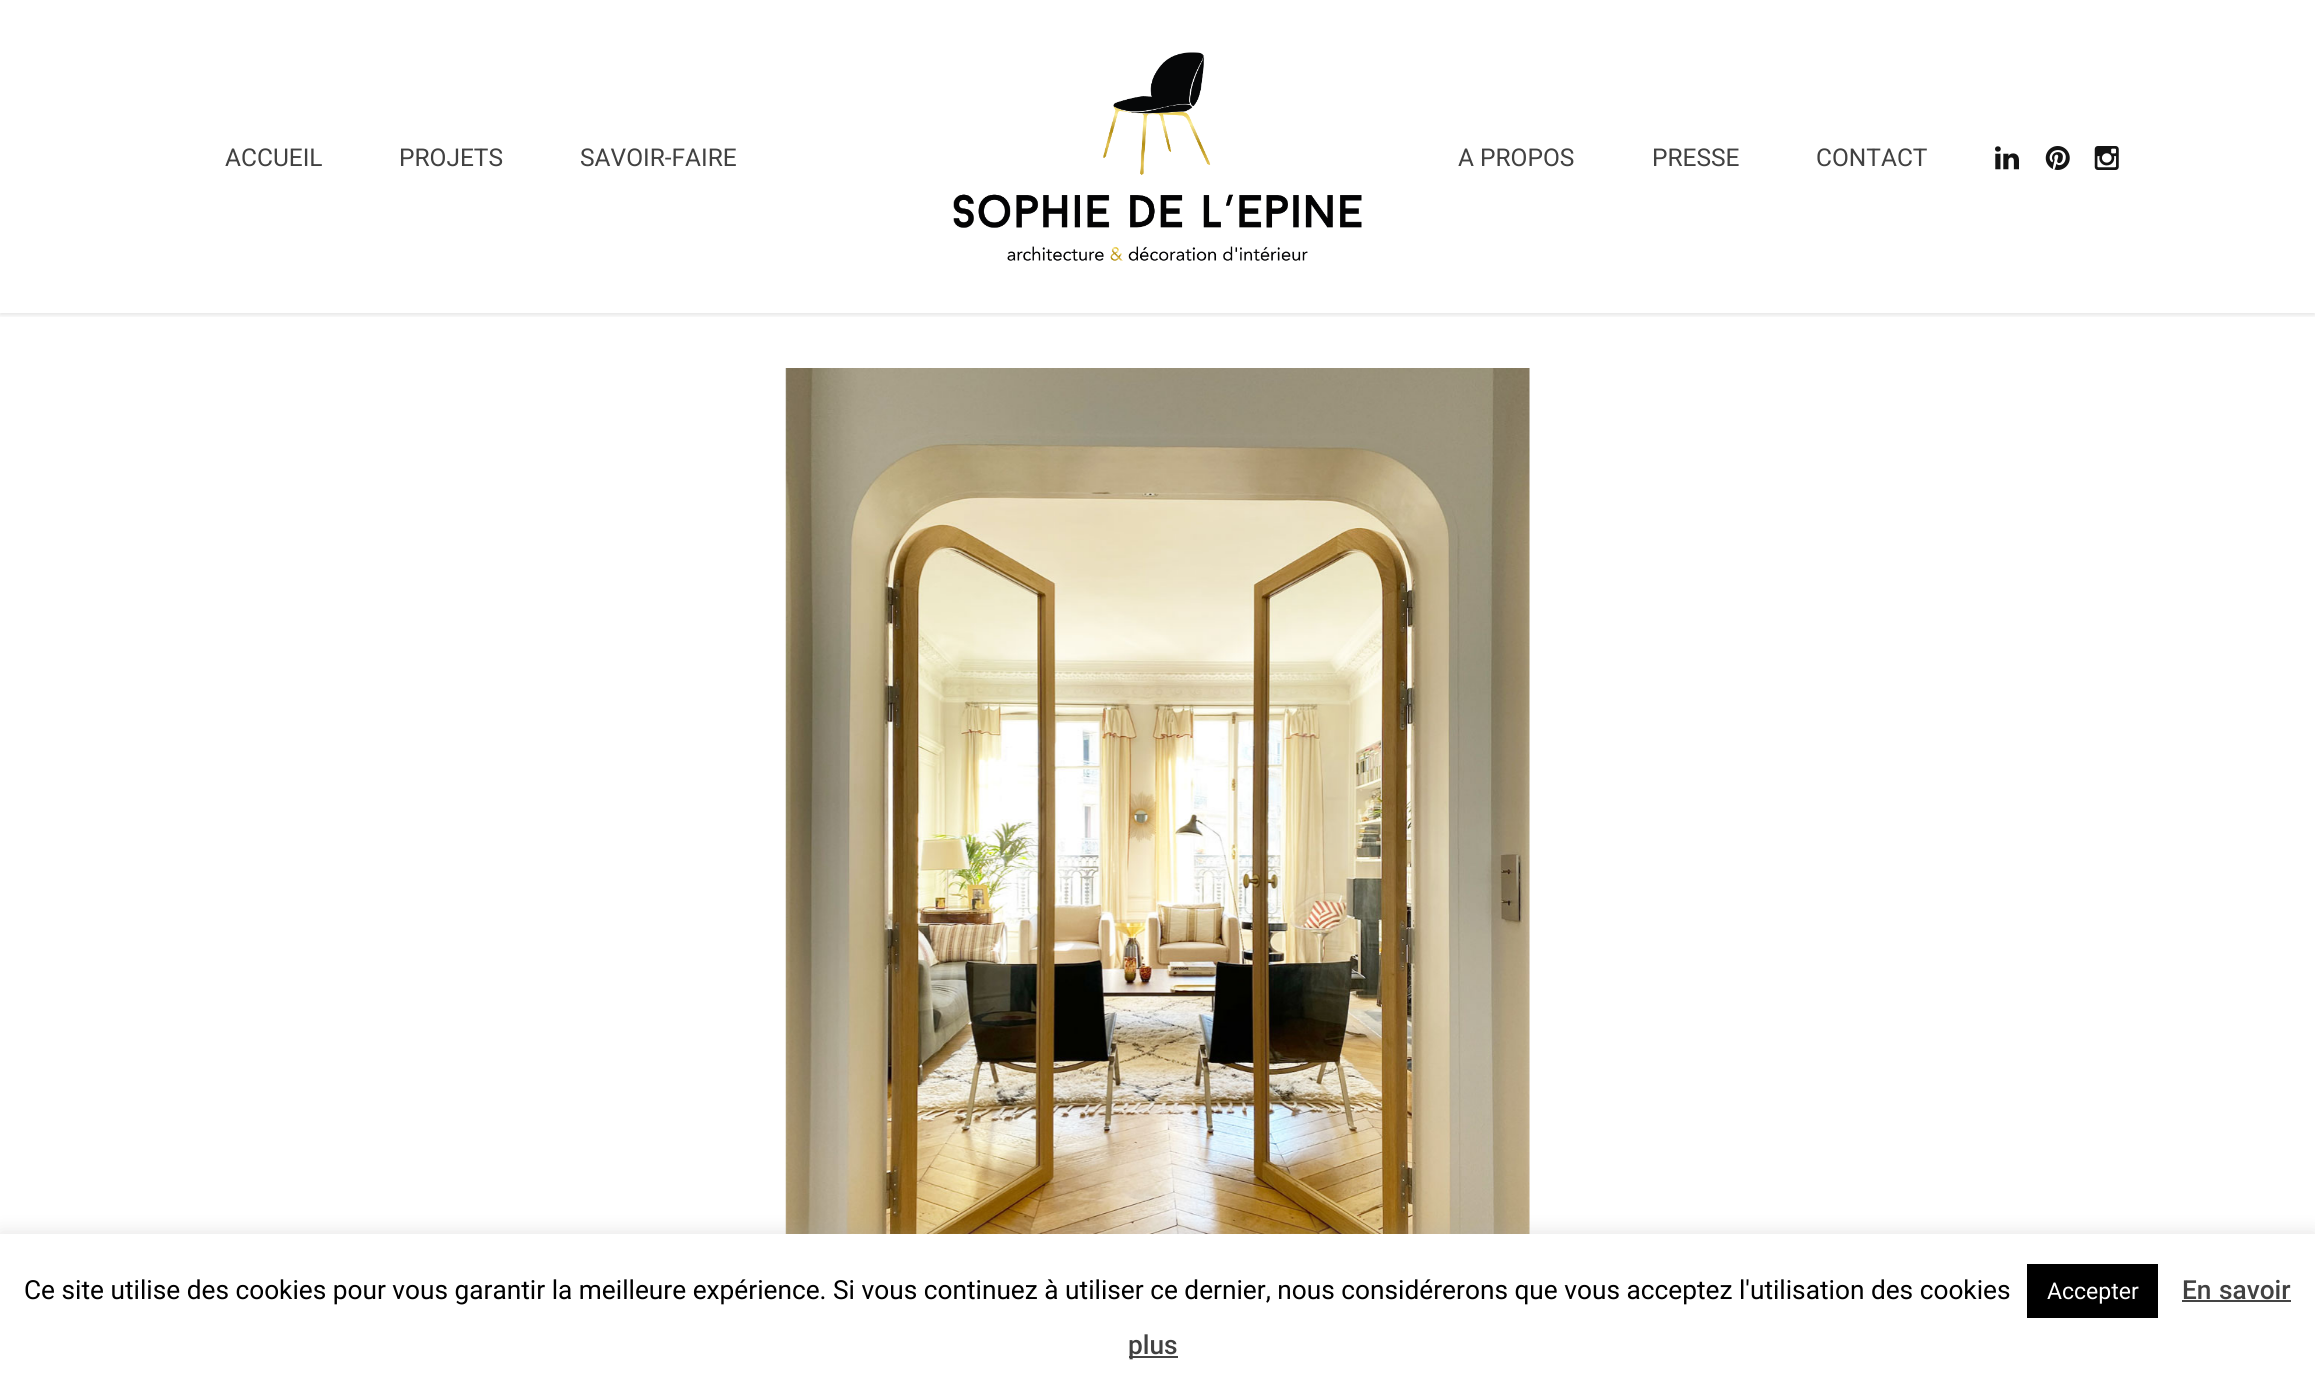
import math
import cairo


def use_color(cr, r, g, b):
  cr.set_source_rgb(r / 255, g / 255, b / 255)

def text(cr, x, y, s, family, size, color, bold=False, italic=False):
  cr.select_font_face(family, cairo.FONT_SLANT_ITALIC if italic else cairo.FONT_SLANT_NORMAL, cairo.FONT_WEIGHT_BOLD if bold else cairo.FONT_WEIGHT_NORMAL)
  cr.set_font_size(size)
  use_color(cr, *color)
  cr.move_to(x, y)
  cr.show_text(s)

def spaced_text(cr, x, y, s, letter, word):
  cr.move_to(x, y)
  for ch in s:
    cr.show_text(ch)
    cr.rel_move_to(letter + word * (ch == ' '), 0)

def box(cr, x, y, w, h, *color):
  use_color(cr, *color)
  cr.rectangle(x, y, w, h)
  cr.fill()

def round_rect(cr, x, y, w, h, r):
  cr.new_sub_path()
  for i, (u, v) in enumerate([(x + w - r, y + h - r), (x + r, y + h - r), (x + r, y + r), (x + w - r, y + r)]):
    cr.arc(u, v, r, i * math.pi / 2, (i + 1) * math.pi / 2)
  cr.close_path()

def shadow(cr, x, y, w, h, r, blur, alpha):
  cr.push_group_with_content(cairo.CONTENT_ALPHA)
  cr.set_operator(cairo.OPERATOR_SOURCE)
  for i in range(15, -16, -2):
    e = blur * i / 6
    if min(w, h) + 2 * e > 0:
      cr.set_source_rgba(0, 0, 0, alpha * math.erfc((i - 1) / 8.5) / 2)
      round_rect(cr, x - e, y - e, w + 2 * e, h + 2 * e, max(0, min(r + e + blur * .6, min(w, h) / 2 + e)))
      cr.fill()
  cr.mask(cr.pop_group())

def picture(cr, path, x, y, w, h):
  cr.save()
  cr.set_source_surface(cairo.ImageSurface.create_from_png(path), x, y)
  cr.rectangle(x, y, w, h)
  cr.fill()
  cr.restore()

def draw(cr):
  use_color(cr, 255, 255, 255)
  cr.paint()
  cr.save()
  cr.rectangle(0, 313, 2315, 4)
  cr.clip()
  use_color(cr, 0, 0, 0)
  shadow(cr, 0, 2, 2315, 313, 0, 2.5, 0.11)
  cr.restore()
  picture(cr, "img_01.png", 953, 52, 409, 209)
  picture(cr, "img_02.png", 1995, 146, 24, 24)
  picture(cr, "img_03.png", 2045, 146, 25, 24)
  picture(cr, "img_04.png", 2094, 146, 25, 24)
  picture(cr, "img_05.png", 785, 368, 745, 866)
  use_color(cr, 172, 171, 171)
  shadow(cr, 0, 1232, 2315, 152, 0, 9, 0.3)
  box(cr, 0, 1234, 2315, 152, 255, 255, 255)
  box(cr, 2027, 1264, 131, 54, 0, 0, 0)
  box(cr, 2182, 1300, 109, 2, 68, 68, 68)
  box(cr, 1129, 1356, 49, 2, 68, 68, 68)
  text(cr, 225, 166, "ACCUEIL", "Roboto", 24.5, (65, 65, 65))
  text(cr, 399, 166, "PROJETS", "Roboto", 24.5, (65, 65, 65))
  text(cr, 580, 166, "SAVOIR-FAIRE", "Roboto", 24.5, (65, 65, 65))
  text(cr, 1458, 166, "A PROPOS", "Roboto", 24.5, (65, 65, 65))
  text(cr, 1652, 166, "PRESSE", "Roboto", 24.5, (65, 65, 65))
  text(cr, 1816, 166, "CONTACT", "Roboto", 24.5, (65, 65, 65))
  text(cr, 24, 1299, "Ce site utilise des cookies pour vous garantir la meilleure expérience. Si vous continuez à utiliser ce dernier, nous considérerons que vous acceptez l'utilisation des cookies", "Roboto", 26.25, (0, 0, 0))
  text(cr, 2047, 1299, "Accepter", "Roboto", 23, (255, 255, 255))
  cr.select_font_face("Roboto Medium")
  cr.set_font_size(26.25)
  use_color(cr, 65, 65, 65)
  spaced_text(cr, 2182, 1299, "En savoir", 0, 1)
  text(cr, 1128, 1354, "plus", "Roboto Medium", 26.25, (65, 65, 65))


surface = cairo.ImageSurface(cairo.FORMAT_RGB24, 2315, 1386)
cr = cairo.Context(surface)
options = cairo.FontOptions()
options.set_hint_metrics(cairo.HINT_METRICS_OFF)
options.set_hint_style(cairo.HINT_STYLE_NONE)
cr.set_font_options(options)
cr.set_miter_limit(4)
draw(cr)
surface.write_to_png("out.png")
